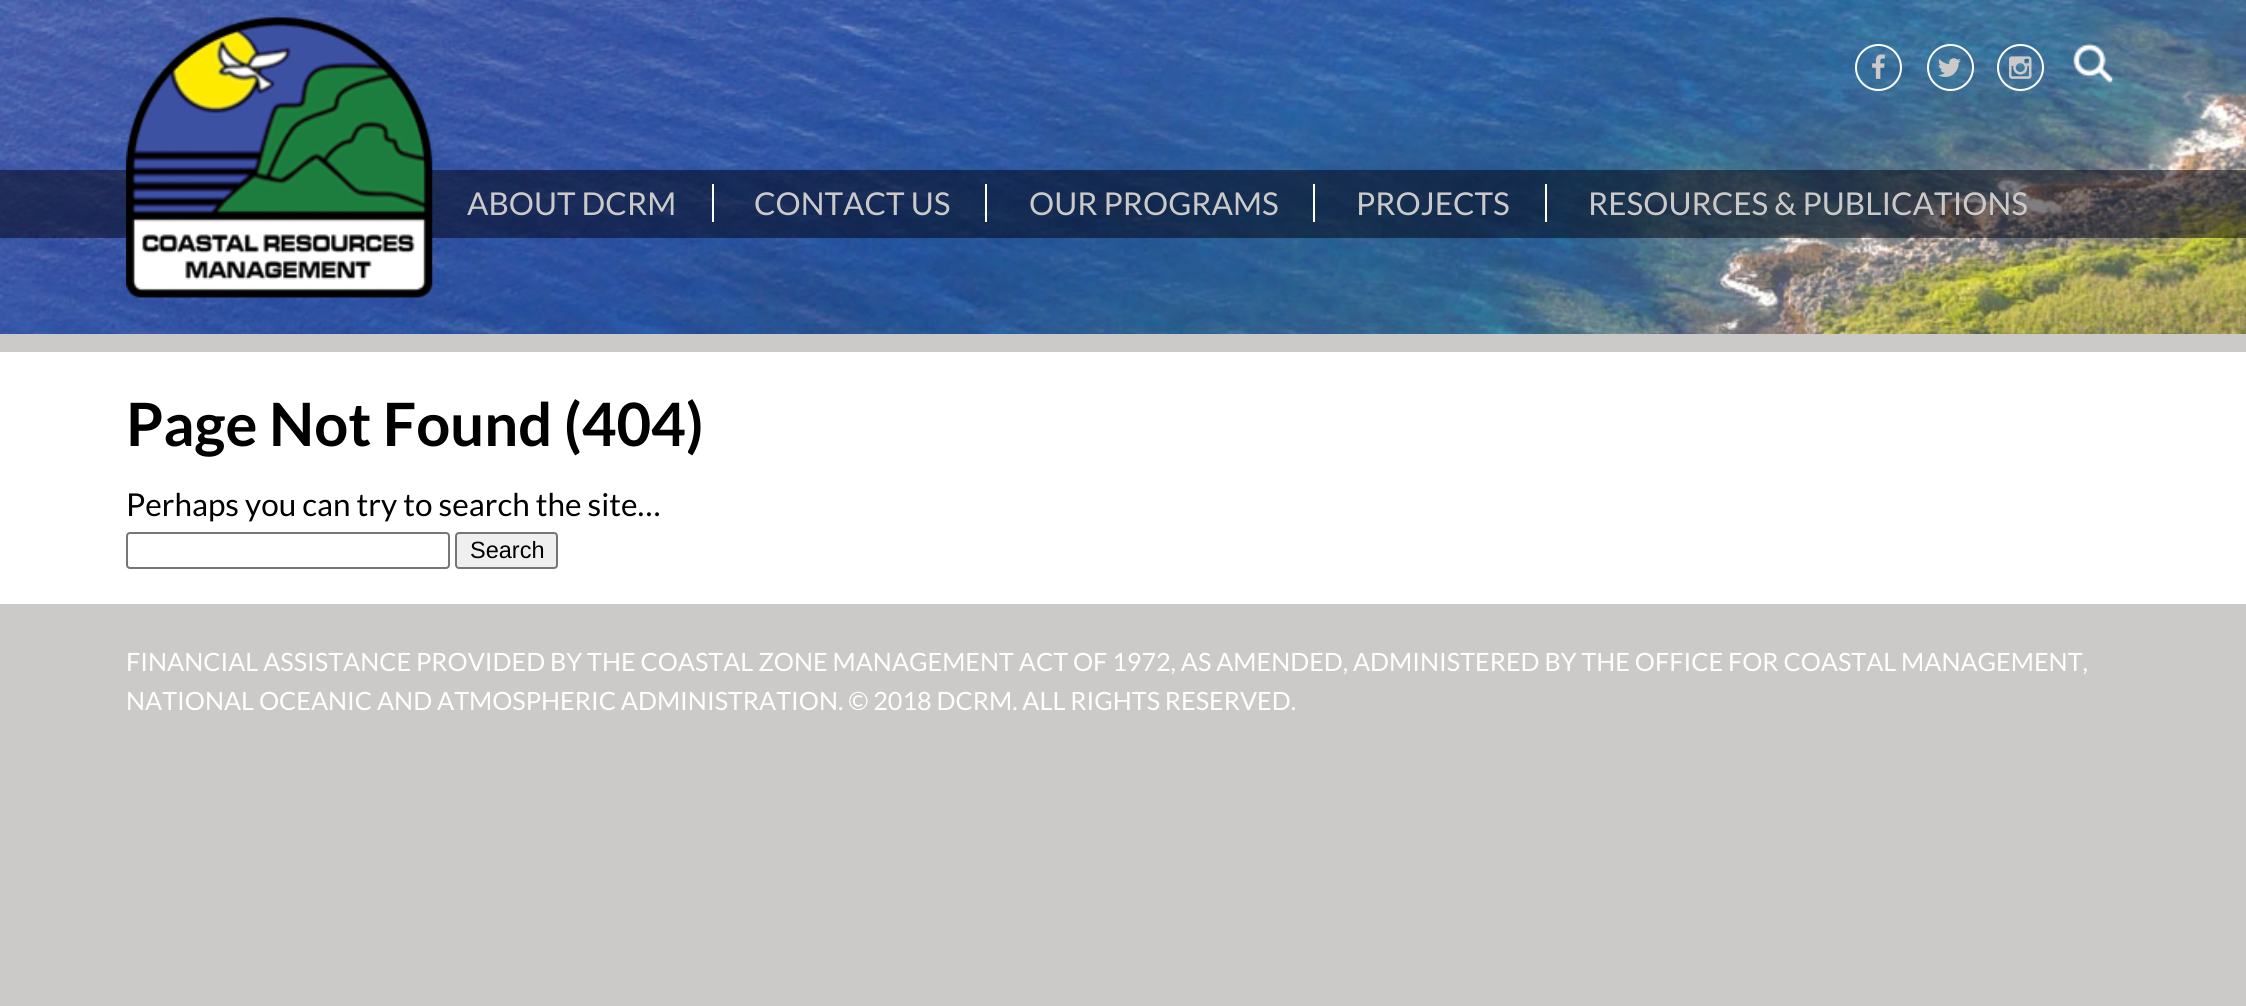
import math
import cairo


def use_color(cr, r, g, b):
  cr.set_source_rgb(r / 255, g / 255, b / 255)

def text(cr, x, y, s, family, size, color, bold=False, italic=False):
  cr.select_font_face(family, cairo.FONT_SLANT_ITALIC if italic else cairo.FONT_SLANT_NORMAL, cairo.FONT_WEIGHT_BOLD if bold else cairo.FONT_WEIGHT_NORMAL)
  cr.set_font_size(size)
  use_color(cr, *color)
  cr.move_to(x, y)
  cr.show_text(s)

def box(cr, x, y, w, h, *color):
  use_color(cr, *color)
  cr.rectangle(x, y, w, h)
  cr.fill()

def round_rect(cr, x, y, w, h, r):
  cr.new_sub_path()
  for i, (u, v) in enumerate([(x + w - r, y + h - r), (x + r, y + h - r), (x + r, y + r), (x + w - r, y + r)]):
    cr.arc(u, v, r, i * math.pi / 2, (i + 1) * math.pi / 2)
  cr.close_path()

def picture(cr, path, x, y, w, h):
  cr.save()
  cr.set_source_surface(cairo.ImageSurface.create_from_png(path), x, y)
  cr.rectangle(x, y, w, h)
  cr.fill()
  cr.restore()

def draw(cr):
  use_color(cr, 204, 202, 201)
  cr.paint()
  box(cr, 0, 352, 2246, 252, 255, 255, 255)
  picture(cr, "img_01.png", 0, 0, 2246, 334)
  cr.set_source_rgba(0.004, 0, 0.047, 0.5)
  cr.rectangle(0, 170, 2246, 68)
  cr.fill()
  picture(cr, "img_02.png", 126, 17, 307, 281)
  cr.arc(1878.5, 67.5, 22.5, 0, 2 * math.pi)
  use_color(cr, 255, 255, 255)
  cr.stroke()
  picture(cr, "img_03.png", 1872, 54, 13, 25)
  cr.arc(1950.5, 67.5, 22.5, 0, 2 * math.pi)
  cr.stroke()
  picture(cr, "img_04.png", 1938, 58, 23, 19)
  cr.arc(2020.5, 67.5, 22.5, 0, 2 * math.pi)
  cr.stroke()
  picture(cr, "img_05.png", 2009, 56, 23, 23)
  picture(cr, "img_06.png", 2073, 43, 40, 40)
  box(cr, 712, 184, 2, 38, 255, 255, 255)
  box(cr, 985, 184, 2, 38, 255, 255, 255)
  box(cr, 1313, 184, 2, 38, 255, 255, 255)
  box(cr, 1545, 184, 2, 38, 255, 255, 255)
  round_rect(cr, 127, 533, 322, 35, 3)
  use_color(cr, 118, 118, 118)
  cr.stroke()
  use_color(cr, 239, 239, 239)
  round_rect(cr, 456, 533, 101, 35, 3)
  cr.fill_preserve()
  use_color(cr, 118, 118, 118)
  cr.stroke()
  text(cr, 467, 215, "ABOUT DCRM", "Lato", 31.5, (204, 202, 201))
  text(cr, 754, 215, "CONTACT US", "Lato", 31.5, (204, 202, 201))
  text(cr, 1029, 215, "OUR PROGRAMS", "Lato", 31.5, (204, 202, 201))
  text(cr, 1356, 215, "PROJECTS", "Lato", 31.5, (204, 202, 201))
  text(cr, 1588, 215, "RESOURCES & PUBLICATIONS", "Lato", 31.5, (204, 202, 201))
  text(cr, 126, 446, "Page Not Found (404)", "Lato", 59.75, (0, 0, 0), bold=True)
  text(cr, 126, 516, "Perhaps you can try to search the site…", "Lato", 31.5, (0, 0, 0))
  text(cr, 470, 558, "Search", "Liberation Sans", 23.5, (0, 0, 0))
  text(cr, 126, 671, "FINANCIAL ASSISTANCE PROVIDED BY THE COASTAL ZONE MANAGEMENT ACT OF 1972, AS AMENDED, ADMINISTERED BY THE OFFICE FOR COASTAL MANAGEMENT,", "Lato", 25.2, (255, 255, 255))
  text(cr, 126, 710, "NATIONAL OCEANIC AND ATMOSPHERIC ADMINISTRATION. © 2018 DCRM. ALL RIGHTS RESERVED.", "Lato", 25.2, (255, 255, 255))


surface = cairo.ImageSurface(cairo.FORMAT_RGB24, 2246, 1006)
cr = cairo.Context(surface)
options = cairo.FontOptions()
options.set_hint_metrics(cairo.HINT_METRICS_OFF)
options.set_hint_style(cairo.HINT_STYLE_NONE)
cr.set_font_options(options)
cr.set_miter_limit(4)
draw(cr)
surface.write_to_png("out.png")
